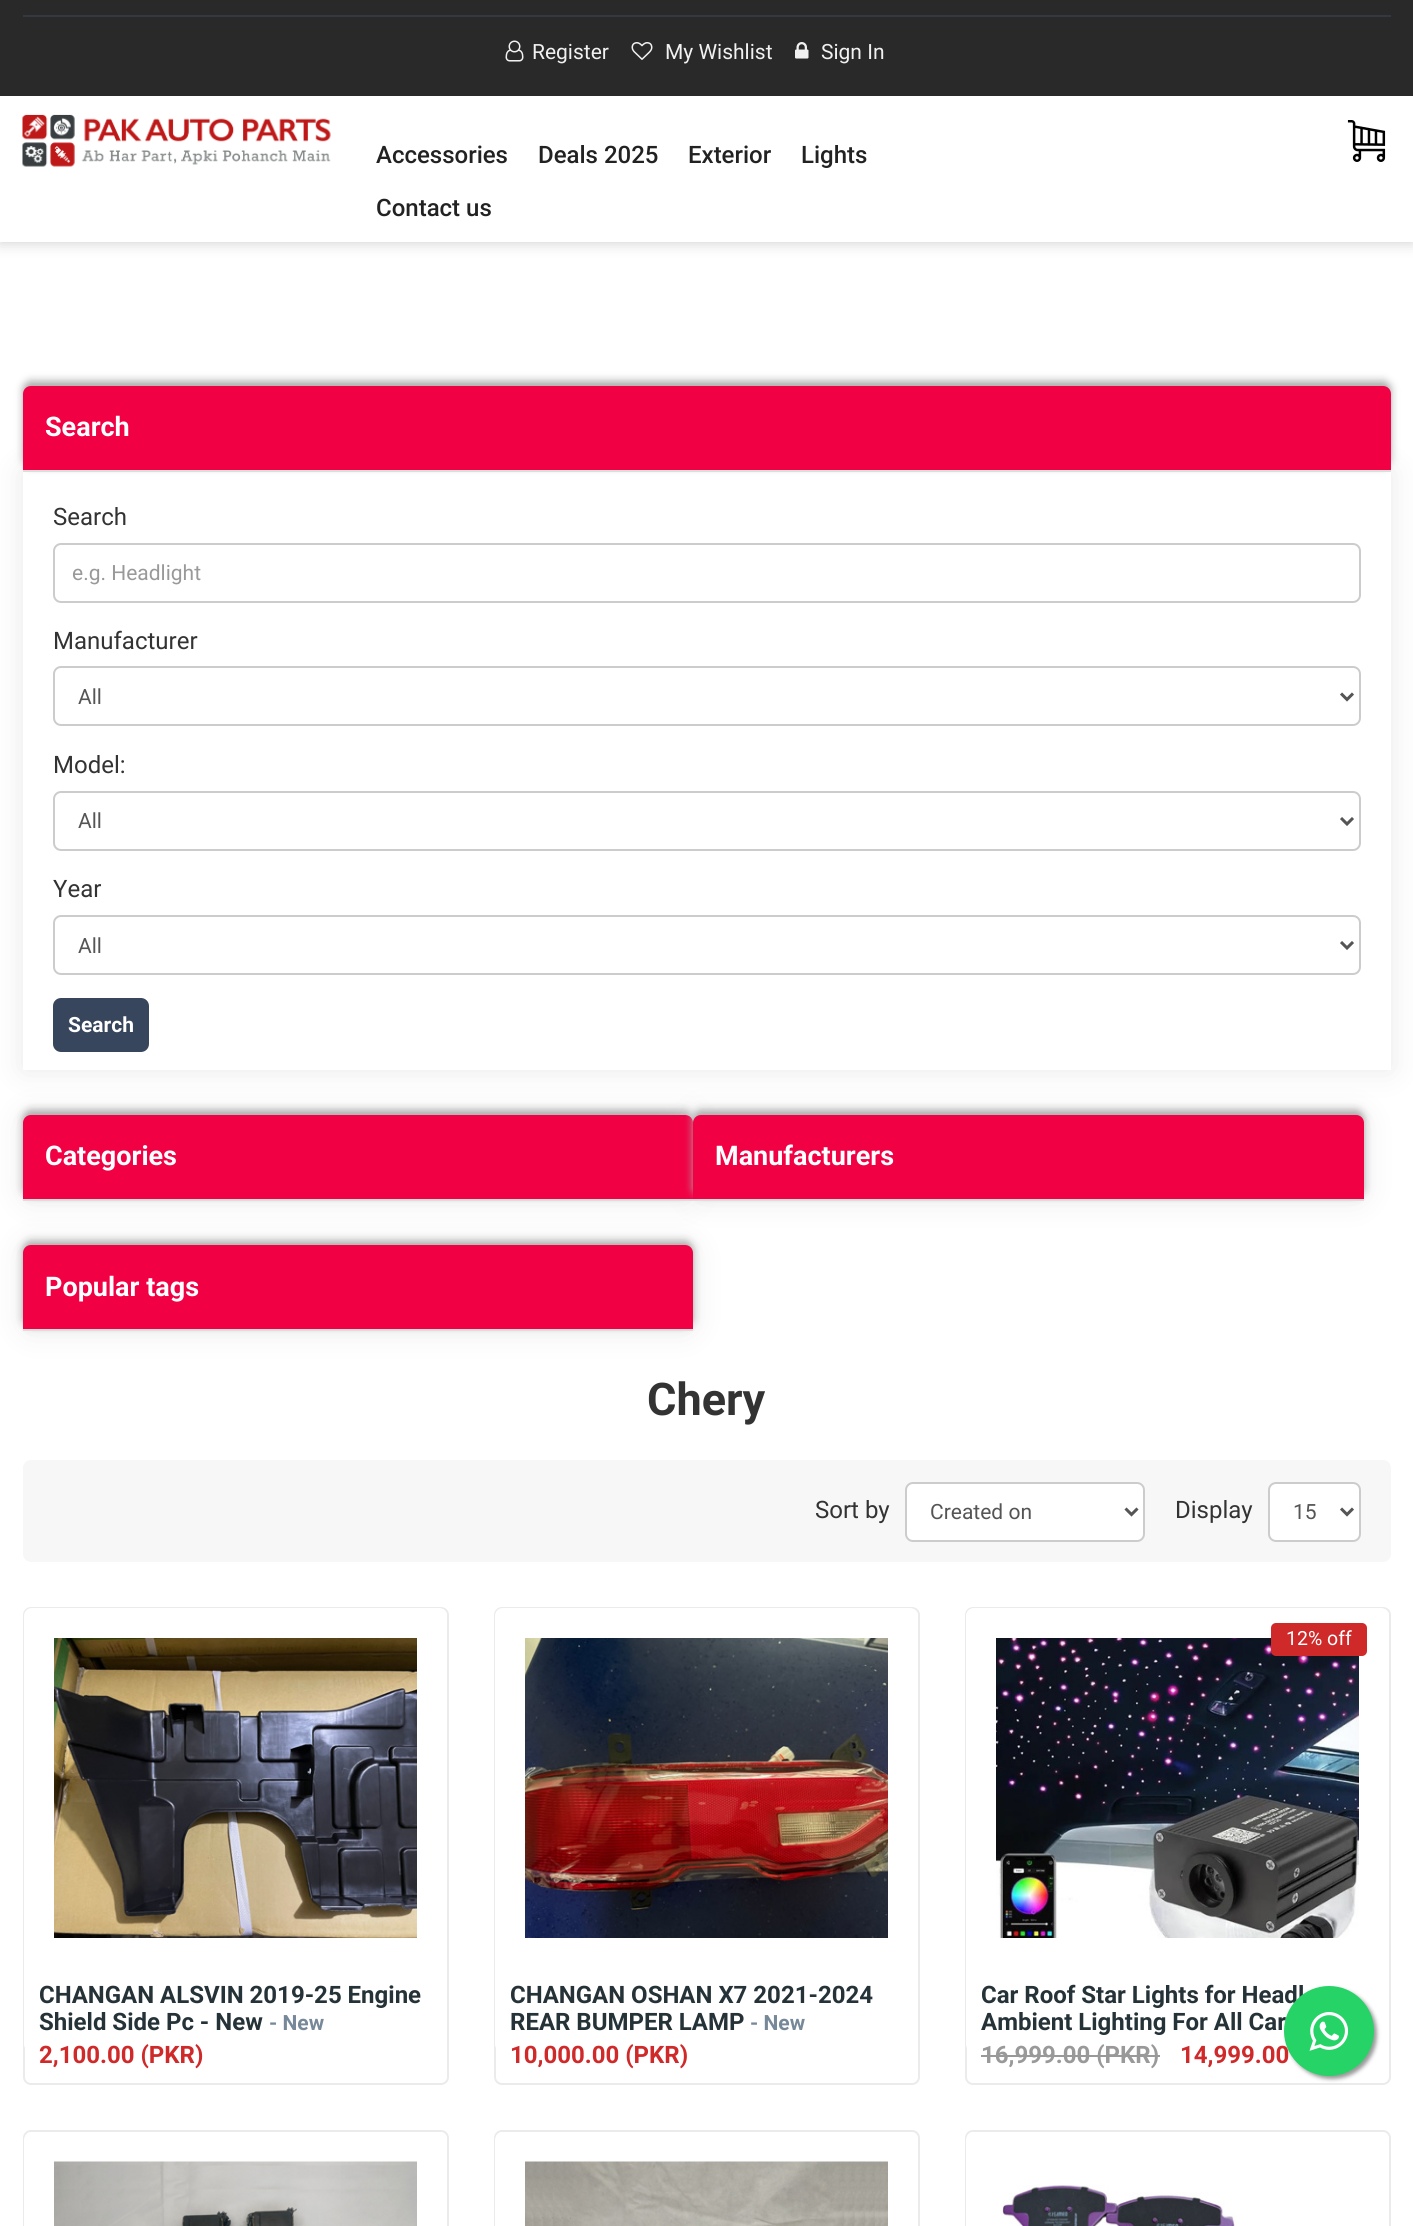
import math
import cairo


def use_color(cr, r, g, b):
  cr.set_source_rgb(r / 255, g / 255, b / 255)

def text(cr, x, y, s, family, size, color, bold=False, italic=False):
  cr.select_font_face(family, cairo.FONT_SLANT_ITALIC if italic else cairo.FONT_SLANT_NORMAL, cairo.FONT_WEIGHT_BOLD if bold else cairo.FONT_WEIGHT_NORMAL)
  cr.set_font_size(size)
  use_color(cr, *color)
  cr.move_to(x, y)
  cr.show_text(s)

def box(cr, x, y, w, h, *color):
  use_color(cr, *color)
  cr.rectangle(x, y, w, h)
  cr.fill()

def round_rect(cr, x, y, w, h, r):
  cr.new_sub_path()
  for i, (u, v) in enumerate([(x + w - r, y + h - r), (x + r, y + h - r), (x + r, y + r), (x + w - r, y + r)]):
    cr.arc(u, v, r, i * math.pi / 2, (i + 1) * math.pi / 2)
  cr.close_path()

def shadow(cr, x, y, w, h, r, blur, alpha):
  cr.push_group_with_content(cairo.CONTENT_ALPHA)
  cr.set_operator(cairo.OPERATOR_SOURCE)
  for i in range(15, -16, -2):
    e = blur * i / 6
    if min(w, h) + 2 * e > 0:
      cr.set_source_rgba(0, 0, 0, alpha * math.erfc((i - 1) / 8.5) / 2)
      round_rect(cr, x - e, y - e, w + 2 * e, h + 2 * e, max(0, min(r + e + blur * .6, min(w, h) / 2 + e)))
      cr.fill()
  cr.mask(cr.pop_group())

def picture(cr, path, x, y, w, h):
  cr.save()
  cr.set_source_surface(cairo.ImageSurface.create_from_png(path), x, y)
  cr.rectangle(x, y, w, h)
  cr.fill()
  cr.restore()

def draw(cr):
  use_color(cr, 255, 255, 255)
  cr.paint()
  use_color(cr, 204, 204, 204)
  shadow(cr, 0, 0, 1413, 242, 0, 7.5, 1)
  box(cr, 0, 0, 1413, 96, 41, 41, 41)
  box(cr, 23, 15, 1368, 2, 51, 57, 62)
  picture(cr, "img_01.png", 505, 40, 19, 22)
  picture(cr, "img_02.png", 631, 42, 22, 18)
  picture(cr, "img_03.png", 795, 42, 14, 17)
  box(cr, 0, 96, 1413, 146, 255, 255, 255)
  picture(cr, "img_04.png", 22, 114, 309, 53)
  picture(cr, "img_05.png", 1347, 120, 39, 42)
  round_rect(cr, 966, 1608, 424, 476, 7)
  use_color(cr, 235, 235, 235)
  cr.stroke()
  use_color(cr, 255, 255, 255)
  cr.new_path()
  cr.move_to(966, 1968)
  cr.line_to(1389, 1968)
  cr.line_to(1389, 2044)
  cr.curve_to(1389, 2048.5, 1385.5, 2052, 1381, 2052)
  cr.line_to(974, 2052)
  cr.curve_to(969.5, 2052, 966, 2048.5, 966, 2044)
  cr.close_path()
  cr.fill()
  use_color(cr, 153, 153, 153)
  shadow(cr, 1287, 1989, 90, 90, 45, 2, 1)
  use_color(cr, 170, 170, 170)
  shadow(cr, 23, 381, 1368, 86, 8, 4, 1)
  cr.save()
  cr.set_fill_rule(cairo.FILL_RULE_EVEN_ODD)
  cr.new_path()
  cr.move_to(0, 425)
  cr.line_to(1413, 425)
  cr.line_to(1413, 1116)
  cr.line_to(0, 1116)
  cr.close_path()
  cr.move_to(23, 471)
  cr.line_to(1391, 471)
  cr.line_to(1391, 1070)
  cr.line_to(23, 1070)
  cr.close_path()
  cr.clip()
  use_color(cr, 234, 234, 234)
  shadow(cr, 23, 471, 1368, 599, 0, 15, 1)
  cr.restore()
  use_color(cr, 241, 0, 68)
  cr.new_path()
  cr.move_to(31, 386)
  cr.line_to(1383, 386)
  cr.curve_to(1387.5, 386, 1391, 389.5, 1391, 394)
  cr.line_to(1391, 471)
  cr.line_to(23, 471)
  cr.line_to(23, 394)
  cr.curve_to(23, 389.5, 26.5, 386, 31, 386)
  cr.close_path()
  cr.fill()
  box(cr, 23, 470, 1368, 2, 221, 221, 221)
  round_rect(cr, 54, 544, 1306, 58, 7)
  use_color(cr, 204, 204, 204)
  cr.stroke()
  round_rect(cr, 54, 667, 1306, 58, 7)
  cr.stroke()
  cr.new_path()
  cr.move_to(1341, 693.5)
  cr.line_to(1347, 699.5)
  cr.line_to(1353, 693.5)
  use_color(cr, 85, 85, 85)
  cr.set_line_width(3)
  cr.stroke()
  round_rect(cr, 54, 792, 1306, 58, 7)
  use_color(cr, 204, 204, 204)
  cr.set_line_width(2)
  cr.stroke()
  cr.new_path()
  cr.move_to(1341, 818)
  cr.line_to(1347, 824)
  cr.line_to(1353, 818)
  use_color(cr, 85, 85, 85)
  cr.set_line_width(3)
  cr.stroke()
  round_rect(cr, 54, 916, 1306, 58, 7)
  use_color(cr, 204, 204, 204)
  cr.set_line_width(2)
  cr.stroke()
  cr.new_path()
  cr.move_to(1341, 942)
  cr.line_to(1347, 948)
  cr.line_to(1353, 942)
  use_color(cr, 85, 85, 85)
  cr.set_line_width(3)
  cr.stroke()
  use_color(cr, 55, 70, 93)
  round_rect(cr, 53, 998, 96, 54, 8)
  cr.fill()
  use_color(cr, 234, 234, 234)
  shadow(cr, 23, 1115, 670, 85, 8, 15, 1)
  use_color(cr, 170, 170, 170)
  shadow(cr, 23, 1110, 670, 86, 8, 4, 1)
  use_color(cr, 234, 234, 234)
  shadow(cr, 693, 1115, 671, 85, 8, 15, 1)
  shadow(cr, 23, 1245, 670, 86, 8, 15, 1)
  use_color(cr, 241, 0, 68)
  cr.new_path()
  cr.move_to(31, 1115)
  cr.line_to(685, 1115)
  cr.curve_to(689.5, 1115, 693, 1118.5, 693, 1123)
  cr.line_to(693, 1200)
  cr.line_to(23, 1200)
  cr.line_to(23, 1123)
  cr.curve_to(23, 1118.5, 26.5, 1115, 31, 1115)
  cr.close_path()
  cr.fill()
  box(cr, 23, 1199, 670, 2, 221, 221, 221)
  use_color(cr, 170, 170, 170)
  shadow(cr, 693, 1110, 671, 86, 8, 4, 1)
  use_color(cr, 241, 0, 68)
  cr.new_path()
  cr.move_to(701, 1115)
  cr.line_to(1356, 1115)
  cr.curve_to(1360.5, 1115, 1364, 1118.5, 1364, 1123)
  cr.line_to(1364, 1200)
  cr.line_to(693, 1200)
  cr.line_to(693, 1123)
  cr.curve_to(693, 1118.5, 696.5, 1115, 701, 1115)
  cr.close_path()
  cr.fill()
  box(cr, 693, 1199, 671, 2, 221, 221, 221)
  use_color(cr, 170, 170, 170)
  shadow(cr, 23, 1241, 670, 85, 8, 4, 1)
  use_color(cr, 241, 0, 68)
  cr.new_path()
  cr.move_to(31, 1245)
  cr.line_to(685, 1245)
  cr.curve_to(689.5, 1245, 693, 1248.5, 693, 1253)
  cr.line_to(693, 1331)
  cr.line_to(23, 1331)
  cr.line_to(23, 1253)
  cr.curve_to(23, 1248.5, 26.5, 1245, 31, 1245)
  cr.close_path()
  cr.fill()
  box(cr, 23, 1329, 670, 2, 221, 221, 221)
  use_color(cr, 247, 247, 247)
  round_rect(cr, 23, 1460, 1368, 102, 8)
  cr.fill()
  use_color(cr, 255, 255, 255)
  round_rect(cr, 906, 1483, 238, 58, 7)
  cr.fill_preserve()
  use_color(cr, 204, 204, 204)
  cr.set_line_width(2)
  cr.stroke()
  cr.new_path()
  cr.move_to(1125.5, 1508.5)
  cr.line_to(1131.5, 1514.5)
  cr.line_to(1137.5, 1508.5)
  use_color(cr, 85, 85, 85)
  cr.set_line_width(3)
  cr.stroke()
  use_color(cr, 255, 255, 255)
  round_rect(cr, 1269, 1483, 91, 58, 7)
  cr.fill_preserve()
  use_color(cr, 204, 204, 204)
  cr.set_line_width(2)
  cr.stroke()
  cr.new_path()
  cr.move_to(1341, 1508.5)
  cr.line_to(1347, 1514.5)
  cr.line_to(1353, 1508.5)
  use_color(cr, 85, 85, 85)
  cr.set_line_width(3)
  cr.stroke()
  round_rect(cr, 24, 1608, 424, 476, 7)
  use_color(cr, 235, 235, 235)
  cr.set_line_width(2)
  cr.stroke()
  use_color(cr, 255, 255, 255)
  cr.new_path()
  cr.move_to(32, 1608)
  cr.line_to(439, 1608)
  cr.curve_to(443.5, 1608, 447, 1611.5, 447, 1616)
  cr.line_to(447, 1968)
  cr.line_to(24, 1968)
  cr.line_to(24, 1616)
  cr.curve_to(24, 1611.5, 27.5, 1608, 32, 1608)
  cr.close_path()
  cr.fill()
  picture(cr, "img_07.png", 54, 1638, 363, 300)
  cr.new_path()
  cr.move_to(24, 1968)
  cr.line_to(447, 1968)
  cr.line_to(447, 2044)
  cr.curve_to(447, 2048.5, 443.5, 2052, 439, 2052)
  cr.line_to(32, 2052)
  cr.curve_to(27.5, 2052, 24, 2048.5, 24, 2044)
  cr.close_path()
  cr.fill()
  round_rect(cr, 495, 1608, 424, 476, 7)
  use_color(cr, 235, 235, 235)
  cr.stroke()
  use_color(cr, 255, 255, 255)
  cr.new_path()
  cr.move_to(503, 1608)
  cr.line_to(910, 1608)
  cr.curve_to(914.5, 1608, 918, 1611.5, 918, 1616)
  cr.line_to(918, 1968)
  cr.line_to(495, 1968)
  cr.line_to(495, 1616)
  cr.curve_to(495, 1611.5, 498.5, 1608, 503, 1608)
  cr.close_path()
  cr.fill()
  picture(cr, "img_08.png", 525, 1638, 363, 300)
  cr.new_path()
  cr.move_to(495, 1968)
  cr.line_to(918, 1968)
  cr.line_to(918, 2044)
  cr.curve_to(918, 2048.5, 914.5, 2052, 910, 2052)
  cr.line_to(503, 2052)
  cr.curve_to(498.5, 2052, 495, 2048.5, 495, 2044)
  cr.close_path()
  cr.fill()
  cr.new_path()
  cr.move_to(974, 1608)
  cr.line_to(1381, 1608)
  cr.curve_to(1385.5, 1608, 1389, 1611.5, 1389, 1616)
  cr.line_to(1389, 1968)
  cr.line_to(966, 1968)
  cr.line_to(966, 1616)
  cr.curve_to(966, 1611.5, 969.5, 1608, 974, 1608)
  cr.close_path()
  cr.fill()
  picture(cr, "img_09.png", 996, 1638, 363, 300)
  use_color(cr, 207, 41, 41)
  round_rect(cr, 1271, 1623, 96, 33, 5)
  cr.fill()
  box(cr, 981, 2055, 179, 2, 153, 153, 153)
  round_rect(cr, 24, 2131, 424, 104, 7)
  use_color(cr, 235, 235, 235)
  cr.stroke()
  use_color(cr, 255, 255, 255)
  cr.new_path()
  cr.move_to(32, 2132)
  cr.line_to(439, 2132)
  cr.curve_to(443.5, 2132, 447, 2135.5, 447, 2140)
  cr.line_to(447, 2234)
  cr.line_to(24, 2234)
  cr.line_to(24, 2140)
  cr.curve_to(24, 2135.5, 27.5, 2132, 32, 2132)
  cr.close_path()
  cr.fill()
  picture(cr, "img_10.png", 54, 2161, 363, 65)
  round_rect(cr, 495, 2131, 424, 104, 7)
  use_color(cr, 235, 235, 235)
  cr.stroke()
  use_color(cr, 255, 255, 255)
  cr.new_path()
  cr.move_to(503, 2132)
  cr.line_to(910, 2132)
  cr.curve_to(914.5, 2132, 918, 2135.5, 918, 2140)
  cr.line_to(918, 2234)
  cr.line_to(495, 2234)
  cr.line_to(495, 2140)
  cr.curve_to(495, 2135.5, 498.5, 2132, 503, 2132)
  cr.close_path()
  cr.fill()
  picture(cr, "img_11.png", 525, 2161, 363, 65)
  round_rect(cr, 966, 2131, 424, 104, 7)
  use_color(cr, 235, 235, 235)
  cr.stroke()
  use_color(cr, 255, 255, 255)
  cr.new_path()
  cr.move_to(974, 2132)
  cr.line_to(1381, 2132)
  cr.curve_to(1385.5, 2132, 1389, 2135.5, 1389, 2140)
  cr.line_to(1389, 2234)
  cr.line_to(966, 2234)
  cr.line_to(966, 2140)
  cr.curve_to(966, 2135.5, 969.5, 2132, 974, 2132)
  cr.close_path()
  cr.fill()
  picture(cr, "img_12.png", 1001, 2185, 236, 41)
  text(cr, 532, 59, "Register", "Roboto", 21, (241, 241, 241))
  text(cr, 665, 59, "My Wishlist", "Roboto", 21, (241, 241, 241))
  text(cr, 821, 59, "Sign In", "Roboto", 21, (241, 241, 241))
  text(cr, 376, 163, "Accessories", "Roboto Medium", 24, (34, 34, 34))
  text(cr, 538, 163, "Deals 2025", "Roboto Medium", 24, (34, 34, 34))
  text(cr, 688, 163, "Exterior", "Roboto Medium", 24, (34, 34, 34))
  text(cr, 801, 163, "Lights", "Roboto Medium", 24, (34, 34, 34))
  text(cr, 376, 216, "Contact us", "Roboto Medium", 24, (34, 34, 34))
  text(cr, 45, 436, "Search", "Roboto", 27, (255, 255, 255), bold=True)
  text(cr, 53, 525, "Search", "Roboto", 24, (51, 51, 51))
  text(cr, 72, 580, "e.g. Headlight", "Roboto", 21, (153, 153, 153))
  text(cr, 53, 649, "Manufacturer", "Roboto", 24, (51, 51, 51))
  text(cr, 78, 704, "All", "Roboto", 21, (85, 85, 85))
  text(cr, 53, 773, "Model:", "Roboto", 24, (51, 51, 51))
  text(cr, 78, 828, "All", "Roboto", 21, (85, 85, 85))
  text(cr, 53, 897, "Year", "Roboto", 24, (51, 51, 51))
  text(cr, 78, 953, "All", "Roboto", 21, (85, 85, 85))
  text(cr, 68, 1032, "Search", "Roboto", 21, (255, 255, 255), bold=True)
  text(cr, 45, 1165, "Categories", "Roboto", 27, (255, 255, 255), bold=True)
  text(cr, 715, 1165, "Manufacturers", "Roboto", 27, (255, 255, 255), bold=True)
  text(cr, 45, 1296, "Popular tags", "Roboto", 27, (255, 255, 255), bold=True)
  text(cr, 647, 1415, "Chery", "Roboto", 45, (51, 51, 51), bold=True)
  text(cr, 815, 1518, "Sort by", "Roboto", 24, (51, 51, 51))
  text(cr, 930, 1519, "Created on", "Roboto", 21, (85, 85, 85))
  text(cr, 1175, 1518, "Display", "Roboto", 24, (51, 51, 51))
  text(cr, 1293, 1519, "15", "Roboto", 21, (85, 85, 85))
  text(cr, 39, 2003, "CHANGAN ALSVIN 2019-25 Engine", "Roboto", 24, (37, 50, 55), bold=True)
  text(cr, 39, 2030, "Shield Side Pc - New", "Roboto", 24, (37, 50, 55), bold=True)
  text(cr, 269, 2030, "- New", "Roboto", 21, (119, 136, 153), bold=True)
  text(cr, 39, 2063, "2,100.00 (PKR)", "Roboto", 24, (207, 41, 41), bold=True)
  text(cr, 510, 2003, "CHANGAN OSHAN X7 2021-2024", "Roboto", 24, (37, 50, 55), bold=True)
  text(cr, 510, 2030, "REAR BUMPER LAMP", "Roboto", 24, (37, 50, 55), bold=True)
  text(cr, 750, 2030, "- New", "Roboto", 21, (119, 136, 153), bold=True)
  text(cr, 510, 2063, "10,000.00 (PKR)", "Roboto", 24, (207, 41, 41), bold=True)
  text(cr, 1286, 1645, "12% off", "Roboto", 19.5, (255, 255, 255))
  text(cr, 981, 2003, "Car Roof Star Lights for Headl", "Roboto", 24, (37, 50, 55), bold=True)
  text(cr, 981, 2030, "Ambient Lighting For All Car", "Roboto", 24, (37, 50, 55), bold=True)
  text(cr, 981, 2063, "16,999.00 (PKR)", "Roboto", 24, (153, 153, 153), bold=True)
  text(cr, 1180, 2063, "14,999.00", "Roboto", 24, (207, 41, 41), bold=True)
  use_color(cr, 37, 211, 102)
  cr.new_path()
  cr.arc(1329, 2031, 45, 0, 2 * math.pi)
  cr.fill()
  picture(cr, "img_06.png", 1309, 2012, 40, 39)


surface = cairo.ImageSurface(cairo.FORMAT_RGB24, 1413, 2226)
cr = cairo.Context(surface)
options = cairo.FontOptions()
options.set_hint_metrics(cairo.HINT_METRICS_OFF)
options.set_hint_style(cairo.HINT_STYLE_NONE)
cr.set_font_options(options)
cr.set_miter_limit(4)
draw(cr)
surface.write_to_png("out.png")
